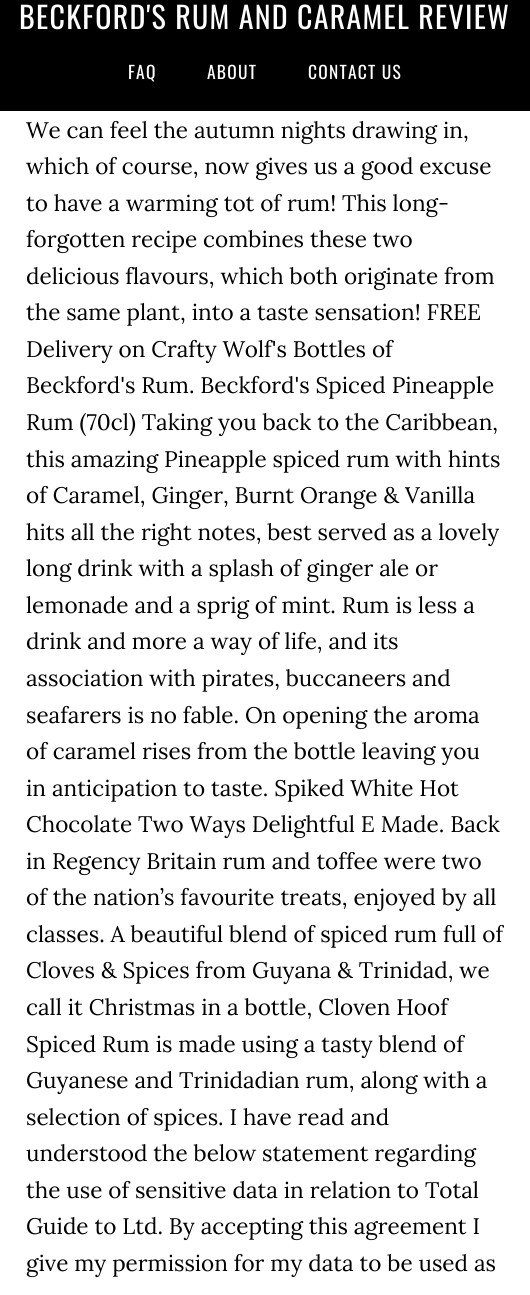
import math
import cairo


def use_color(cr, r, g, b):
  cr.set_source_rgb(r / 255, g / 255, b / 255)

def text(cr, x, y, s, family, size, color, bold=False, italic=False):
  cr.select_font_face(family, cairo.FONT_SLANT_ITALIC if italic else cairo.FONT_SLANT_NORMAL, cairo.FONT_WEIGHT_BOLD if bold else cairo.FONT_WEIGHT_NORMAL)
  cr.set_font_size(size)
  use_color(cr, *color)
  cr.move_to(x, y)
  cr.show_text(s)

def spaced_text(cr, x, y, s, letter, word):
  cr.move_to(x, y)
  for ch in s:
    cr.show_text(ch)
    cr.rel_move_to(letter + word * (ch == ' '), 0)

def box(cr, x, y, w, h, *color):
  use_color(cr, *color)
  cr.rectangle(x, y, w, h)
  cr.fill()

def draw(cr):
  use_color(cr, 255, 255, 255)
  cr.paint()
  box(cr, 0, 0, 530, 111, 0, 0, 0)
  cr.select_font_face("Oswald")
  cr.set_font_size(30)
  use_color(cr, 255, 255, 255)
  spaced_text(cr, 19, 29, "BECKFORD'S RUM AND CARAMEL REVIEW", 1.25, 0)
  cr.set_font_size(17.5)
  spaced_text(cr, 128, 79, "FAQ", 1.25, 0)
  spaced_text(cr, 207, 79, "ABOUT", 1.25, 0)
  spaced_text(cr, 308, 79, "CONTACT US", 1.25, 0)
  text(cr, 26, 138, "We can feel the autumn nights drawing in,", "Lora", 22.5, (0, 0, 0))
  text(cr, 26, 174, "which of course, now gives us a good excuse", "Lora", 22.5, (0, 0, 0))
  text(cr, 26, 211, "to have a warming tot of rum! This long-", "Lora", 22.5, (0, 0, 0))
  text(cr, 26, 247, "forgotten recipe combines these two", "Lora", 22.5, (0, 0, 0))
  text(cr, 26, 284, "delicious flavours, which both originate from", "Lora", 22.5, (0, 0, 0))
  text(cr, 26, 320, "the same plant, into a taste sensation! FREE", "Lora", 22.5, (0, 0, 0))
  text(cr, 26, 357, "Delivery on Crafty Wolf's Bottles of", "Lora", 22.5, (0, 0, 0))
  text(cr, 26, 393, "Beckford's Rum. Beckford's Spiced Pineapple", "Lora", 22.5, (0, 0, 0))
  text(cr, 26, 430, "Rum (70cl) Taking you back to the Caribbean,", "Lora", 22.5, (0, 0, 0))
  text(cr, 26, 467, "this amazing Pineapple spiced rum with hints", "Lora", 22.5, (0, 0, 0))
  text(cr, 26, 503, "of Caramel, Ginger, Burnt Orange & Vanilla", "Lora", 22.5, (0, 0, 0))
  text(cr, 26, 540, "hits all the right notes, best served as a lovely", "Lora", 22.5, (0, 0, 0))
  text(cr, 26, 576, "long drink with a splash of ginger ale or", "Lora", 22.5, (0, 0, 0))
  text(cr, 26, 613, "lemonade and a sprig of mint. Rum is less a", "Lora", 22.5, (0, 0, 0))
  text(cr, 26, 649, "drink and more a way of life, and its", "Lora", 22.5, (0, 0, 0))
  text(cr, 26, 686, "association with pirates, buccaneers and", "Lora", 22.5, (0, 0, 0))
  text(cr, 26, 723, "seafarers is no fable. On opening the aroma", "Lora", 22.5, (0, 0, 0))
  text(cr, 26, 759, "of caramel rises from the bottle leaving you", "Lora", 22.5, (0, 0, 0))
  text(cr, 26, 796, "in anticipation to taste. Spiked White Hot", "Lora", 22.5, (0, 0, 0))
  text(cr, 26, 832, "Chocolate Two Ways Delightful E Made. Back", "Lora", 22.5, (0, 0, 0))
  text(cr, 26, 869, "in Regency Britain rum and toffee were two", "Lora", 22.5, (0, 0, 0))
  text(cr, 26, 905, "of the nation’s favourite treats, enjoyed by all", "Lora", 22.5, (0, 0, 0))
  text(cr, 26, 942, "classes. A beautiful blend of spiced rum full of", "Lora", 22.5, (0, 0, 0))
  text(cr, 26, 978, "Cloves & Spices from Guyana & Trinidad, we", "Lora", 22.5, (0, 0, 0))
  text(cr, 26, 1015, "call it Christmas in a bottle, Cloven Hoof", "Lora", 22.5, (0, 0, 0))
  text(cr, 26, 1052, "Spiced Rum is made using a tasty blend of", "Lora", 22.5, (0, 0, 0))
  text(cr, 26, 1088, "Guyanese and Trinidadian rum, along with a", "Lora", 22.5, (0, 0, 0))
  text(cr, 26, 1125, "selection of spices. I have read and", "Lora", 22.5, (0, 0, 0))
  text(cr, 26, 1161, "understood the below statement regarding", "Lora", 22.5, (0, 0, 0))
  text(cr, 26, 1198, "the use of sensitive data in relation to Total", "Lora", 22.5, (0, 0, 0))
  text(cr, 26, 1234, "Guide to Ltd. By accepting this agreement I", "Lora", 22.5, (0, 0, 0))
  text(cr, 26, 1271, "give my permission for my data to be used as", "Lora", 22.5, (0, 0, 0))


surface = cairo.ImageSurface(cairo.FORMAT_RGB24, 530, 1295)
cr = cairo.Context(surface)
options = cairo.FontOptions()
options.set_hint_metrics(cairo.HINT_METRICS_OFF)
options.set_hint_style(cairo.HINT_STYLE_NONE)
cr.set_font_options(options)
cr.set_miter_limit(4)
draw(cr)
surface.write_to_png("out.png")
